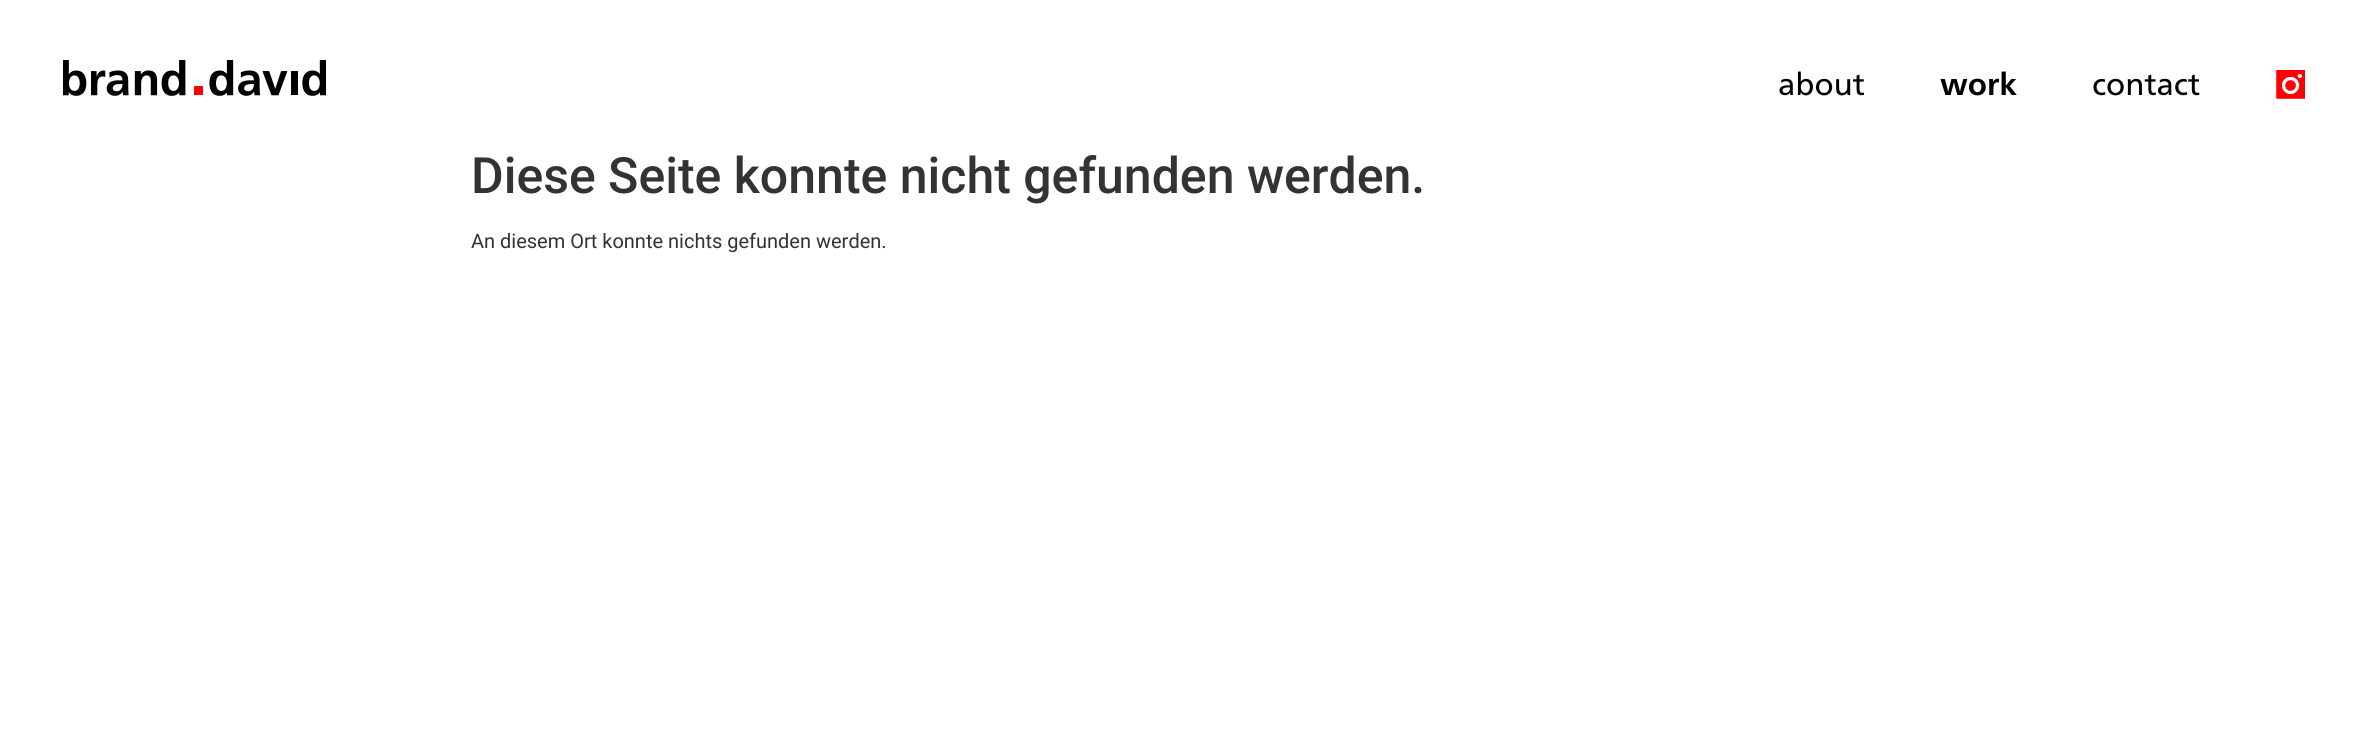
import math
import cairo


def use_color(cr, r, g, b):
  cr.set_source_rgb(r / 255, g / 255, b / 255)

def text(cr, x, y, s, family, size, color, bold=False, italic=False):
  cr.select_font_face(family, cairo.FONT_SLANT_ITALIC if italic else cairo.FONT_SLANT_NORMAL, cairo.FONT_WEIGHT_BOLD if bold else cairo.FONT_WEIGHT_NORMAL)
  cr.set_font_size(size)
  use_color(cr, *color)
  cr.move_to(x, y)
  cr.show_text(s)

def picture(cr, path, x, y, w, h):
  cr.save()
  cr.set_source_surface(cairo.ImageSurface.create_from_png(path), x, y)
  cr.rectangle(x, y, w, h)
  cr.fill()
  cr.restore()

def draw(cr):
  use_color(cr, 255, 255, 255)
  cr.paint()
  picture(cr, "img_01.png", 63, 60, 263, 36)
  picture(cr, "img_02.png", 2276, 70, 29, 29)
  text(cr, 1778, 95, "about", "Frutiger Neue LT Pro", 31, (0, 0, 0))
  text(cr, 1940, 95, "work", "Frutiger Neue LT Pro", 31, (0, 0, 0), bold=True)
  text(cr, 2092, 95, "contact", "Frutiger Neue LT Pro", 31, (0, 0, 0))
  text(cr, 471, 193, "Diese Seite konnte nicht gefunden werden.", "Roboto Medium", 50, (51, 51, 51))
  text(cr, 471, 248, "An diesem Ort konnte nichts gefunden werden.", "Roboto", 20, (51, 51, 51))


surface = cairo.ImageSurface(cairo.FORMAT_RGB24, 2367, 743)
cr = cairo.Context(surface)
options = cairo.FontOptions()
options.set_hint_metrics(cairo.HINT_METRICS_OFF)
options.set_hint_style(cairo.HINT_STYLE_NONE)
cr.set_font_options(options)
cr.set_miter_limit(4)
draw(cr)
surface.write_to_png("out.png")
